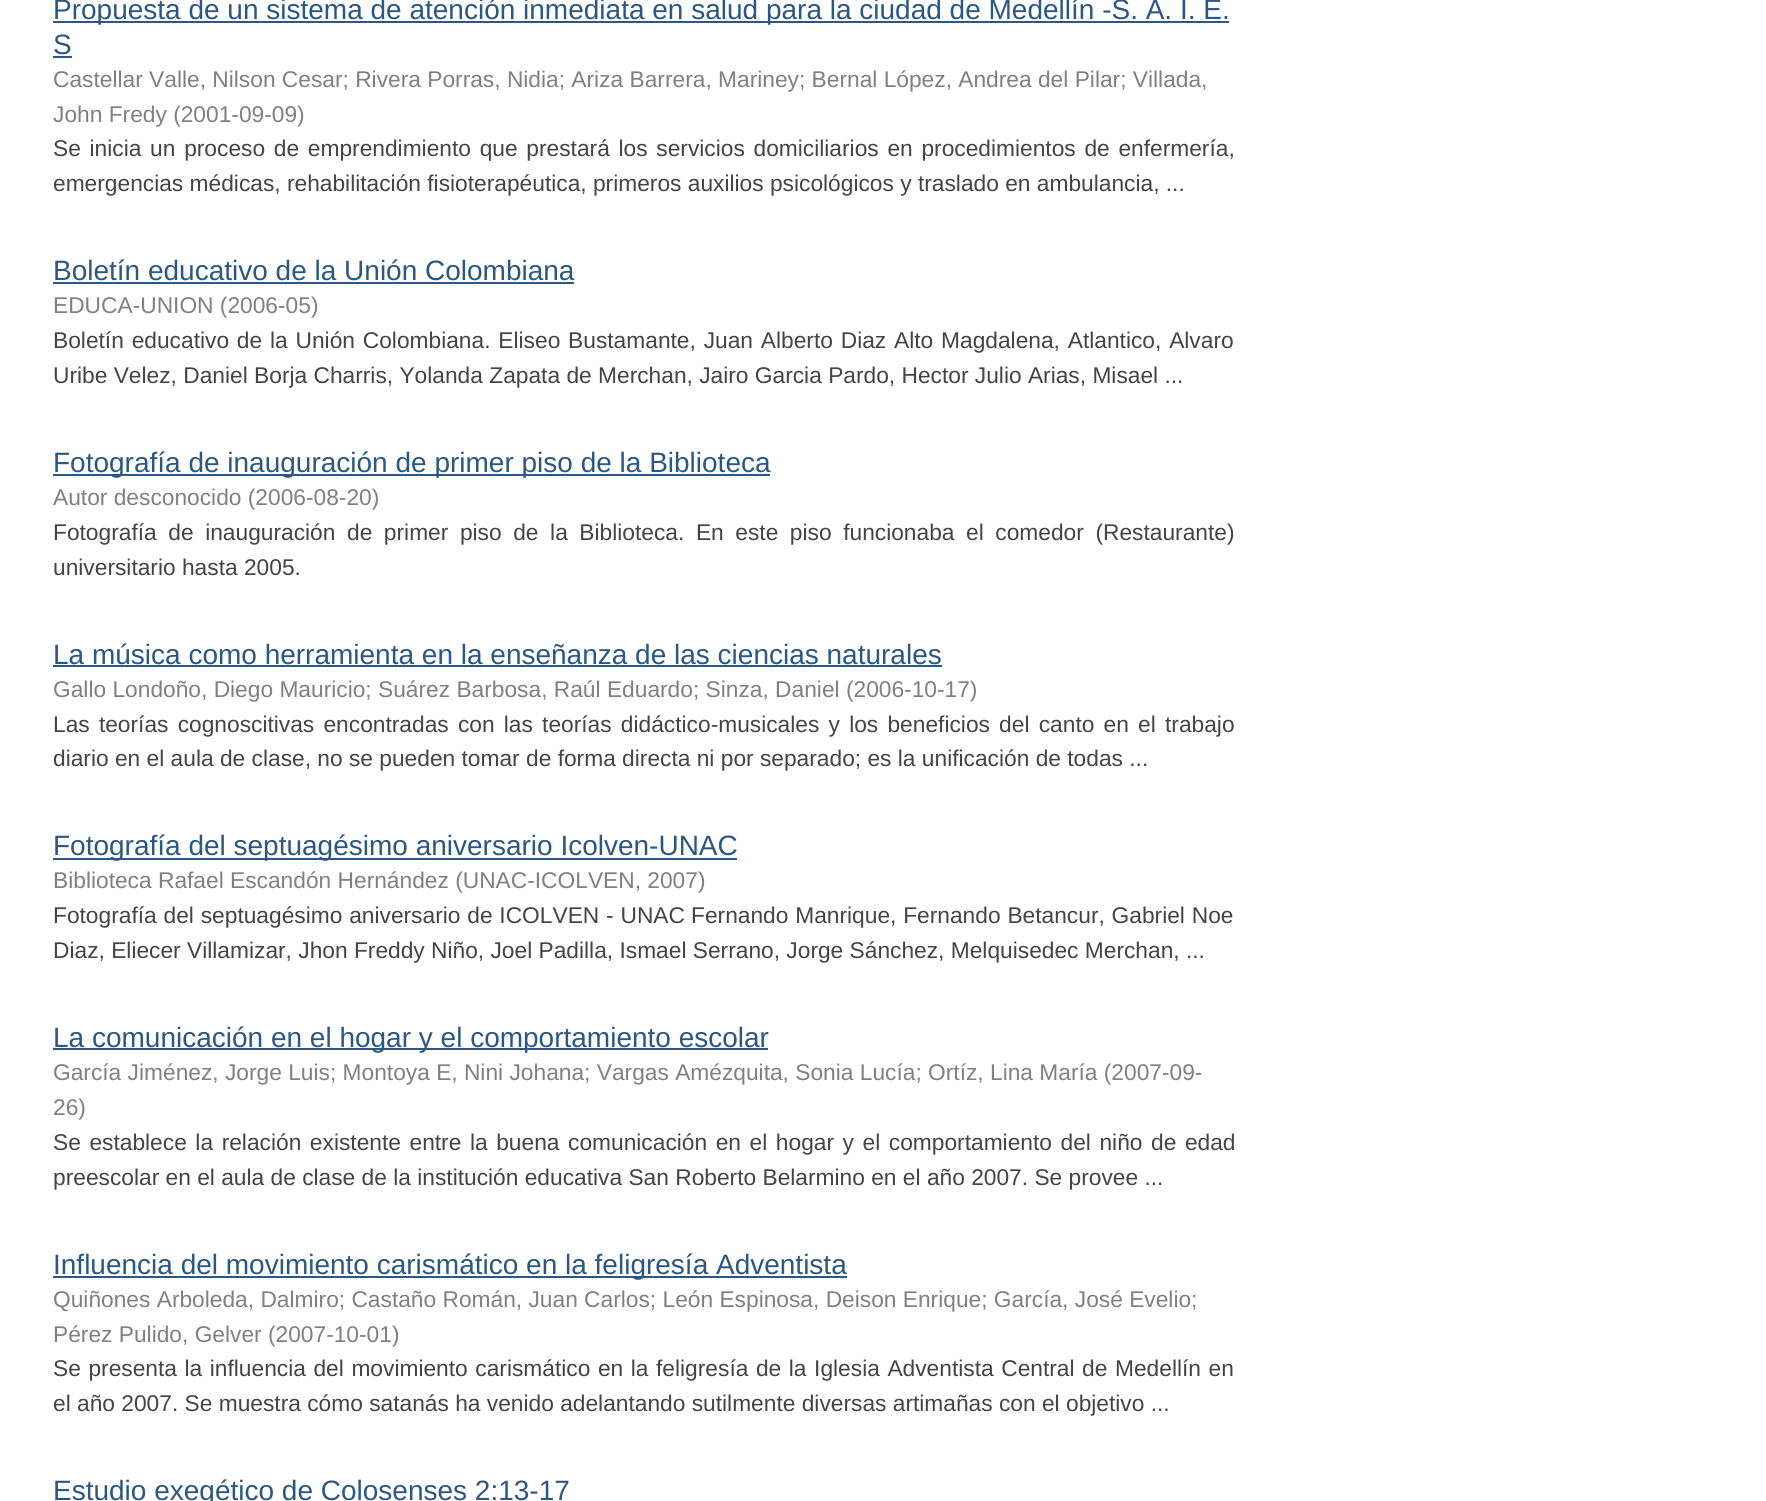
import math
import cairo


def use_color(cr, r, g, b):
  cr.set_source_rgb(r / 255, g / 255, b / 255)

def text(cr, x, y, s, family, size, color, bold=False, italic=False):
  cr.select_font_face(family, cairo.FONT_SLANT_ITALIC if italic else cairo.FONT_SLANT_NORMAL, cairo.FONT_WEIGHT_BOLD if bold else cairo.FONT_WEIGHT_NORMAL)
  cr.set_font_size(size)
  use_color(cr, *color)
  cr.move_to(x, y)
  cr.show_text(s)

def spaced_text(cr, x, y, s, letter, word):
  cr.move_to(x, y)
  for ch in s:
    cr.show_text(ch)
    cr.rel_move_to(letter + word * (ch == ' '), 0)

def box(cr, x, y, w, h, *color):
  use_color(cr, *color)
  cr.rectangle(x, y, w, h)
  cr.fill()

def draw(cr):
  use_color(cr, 255, 255, 255)
  cr.paint()
  box(cr, 53, 21, 1176, 2, 43, 87, 132)
  box(cr, 53, 56, 19, 2, 43, 87, 132)
  box(cr, 53, 282, 521, 2, 43, 87, 132)
  box(cr, 53, 474, 717, 2, 43, 87, 132)
  box(cr, 53, 665, 889, 2, 43, 87, 132)
  box(cr, 53, 858, 684, 2, 43, 87, 132)
  box(cr, 53, 1048, 715, 2, 43, 87, 132)
  box(cr, 53, 1276, 794, 2, 43, 87, 132)
  text(cr, 53, 19, "Propuesta de un sistema de atención inmediata en salud para la ciudad de Medellín -S. A. I. E.", "Liberation Sans", 28, (43, 87, 132))
  text(cr, 53, 54, "S", "Liberation Sans", 28, (43, 87, 132))
  text(cr, 53, 87, "Castellar Valle, Nilson Cesar; Rivera Porras, Nidia; Ariza Barrera, Mariney; Bernal López, Andrea del Pilar; Villada,", "Liberation Sans", 22.75, (128, 128, 128))
  text(cr, 53, 122, "John Fredy (2001-09-09)", "Liberation Sans", 22.75, (128, 128, 128))
  use_color(cr, 68, 68, 68)
  spaced_text(cr, 53, 156, "Se inicia un proceso de emprendimiento que prestará los servicios domiciliarios en procedimientos de enfermería,", 0, 2.4)
  text(cr, 53, 191, "emergencias médicas, rehabilitación fisioterapéutica, primeros auxilios psicológicos y traslado en ambulancia, ...", "Liberation Sans", 22.75, (68, 68, 68))
  text(cr, 53, 280, "Boletín educativo de la Unión Colombiana", "Liberation Sans", 28, (43, 87, 132))
  text(cr, 53, 313, "EDUCA-UNION (2006-05)", "Liberation Sans", 22.75, (128, 128, 128))
  use_color(cr, 68, 68, 68)
  spaced_text(cr, 53, 348, "Boletín educativo de la Unión Colombiana. Eliseo Bustamante, Juan Alberto Diaz", 0, 1.5)
  spaced_text(cr, 894, 348, "Alto Magdalena, Atlantico, Alvaro", 0, 1.5)
  text(cr, 53, 383, "Uribe Velez, Daniel Borja Charris, Yolanda Zapata de Merchan, Jairo Garcia Pardo, Hector Julio Arias, Misael ...", "Liberation Sans", 22.75, (68, 68, 68))
  text(cr, 53, 472, "Fotografía de inauguración de primer piso de la Biblioteca", "Liberation Sans", 28, (43, 87, 132))
  text(cr, 53, 505, "Autor desconocido (2006-08-20)", "Liberation Sans", 22.75, (128, 128, 128))
  use_color(cr, 68, 68, 68)
  spaced_text(cr, 53, 540, "Fotografía de inauguración de primer piso de la Biblioteca. En este piso funcionaba el comedor (Restaurante)", 0, 5.25)
  text(cr, 53, 575, "universitario hasta 2005.", "Liberation Sans", 22.75, (68, 68, 68))
  text(cr, 53, 664, "La música como herramienta en la enseñanza de las ciencias naturales", "Liberation Sans", 28, (43, 87, 132))
  text(cr, 53, 697, "Gallo Londoño, Diego Mauricio; Suárez Barbosa, Raúl Eduardo; Sinza, Daniel (2006-10-17)", "Liberation Sans", 22.75, (128, 128, 128))
  use_color(cr, 68, 68, 68)
  spaced_text(cr, 53, 732, "Las teorías cognoscitivas encontradas con las teorías didáctico-musicales y los beneficios del canto en el trabajo", 0, 2.9)
  text(cr, 53, 766, "diario en el aula de clase, no se pueden tomar de forma directa ni por separado; es la unificación de todas ...", "Liberation Sans", 22.75, (68, 68, 68))
  text(cr, 53, 855, "Fotografía del septuagésimo aniversario Icolven-UNAC", "Liberation Sans", 28, (43, 87, 132))
  text(cr, 53, 888, "Biblioteca Rafael Escandón Hernández (UNAC-ICOLVEN, 2007)", "Liberation Sans", 22.75, (128, 128, 128))
  use_color(cr, 68, 68, 68)
  spaced_text(cr, 53, 923, "Fotografía del septuagésimo aniversario de ICOLVEN - UNAC", 0, 0.5)
  spaced_text(cr, 691, 923, "Fernando Manrique, Fernando Betancur, Gabriel Noe", 0, 0.5)
  text(cr, 53, 958, "Diaz, Eliecer Villamizar, Jhon Freddy Niño, Joel Padilla, Ismael Serrano, Jorge Sánchez, Melquisedec Merchan, ...", "Liberation Sans", 22.75, (68, 68, 68))
  text(cr, 53, 1047, "La comunicación en el hogar y el comportamiento escolar", "Liberation Sans", 28, (43, 87, 132))
  text(cr, 53, 1080, "García Jiménez, Jorge Luis; Montoya E, Nini Johana; Vargas Amézquita, Sonia Lucía; Ortíz, Lina María (2007-09-", "Liberation Sans", 22.75, (128, 128, 128))
  text(cr, 53, 1115, "26)", "Liberation Sans", 22.75, (128, 128, 128))
  use_color(cr, 68, 68, 68)
  spaced_text(cr, 53, 1150, "Se establece la relación existente entre la buena comunicación en el hogar y el comportamiento del niño de edad", 0, 2.25)
  text(cr, 53, 1185, "preescolar en el aula de clase de la institución educativa San Roberto Belarmino en el año 2007. Se provee ...", "Liberation Sans", 22.75, (68, 68, 68))
  text(cr, 53, 1274, "Influencia del movimiento carismático en la feligresía Adventista", "Liberation Sans", 28, (43, 87, 132))
  text(cr, 53, 1307, "Quiñones Arboleda, Dalmiro; Castaño Román, Juan Carlos; León Espinosa, Deison Enrique; García, José Evelio;", "Liberation Sans", 22.75, (128, 128, 128))
  text(cr, 53, 1342, "Pérez Pulido, Gelver (2007-10-01)", "Liberation Sans", 22.75, (128, 128, 128))
  use_color(cr, 68, 68, 68)
  spaced_text(cr, 53, 1376, "Se presenta la influencia del movimiento carismático en la feligresía de la Iglesia Adventista Central de Medellín en", 0, 1.25)
  text(cr, 53, 1411, "el año 2007. Se muestra cómo satanás ha venido adelantando sutilmente diversas artimañas con el objetivo ...", "Liberation Sans", 22.75, (68, 68, 68))
  text(cr, 53, 1500, "Estudio exegético de Colosenses 2:13-17", "Liberation Sans", 28, (43, 87, 132))


surface = cairo.ImageSurface(cairo.FORMAT_RGB24, 1766, 1501)
cr = cairo.Context(surface)
options = cairo.FontOptions()
options.set_hint_metrics(cairo.HINT_METRICS_OFF)
options.set_hint_style(cairo.HINT_STYLE_NONE)
cr.set_font_options(options)
cr.set_miter_limit(4)
draw(cr)
surface.write_to_png("out.png")
